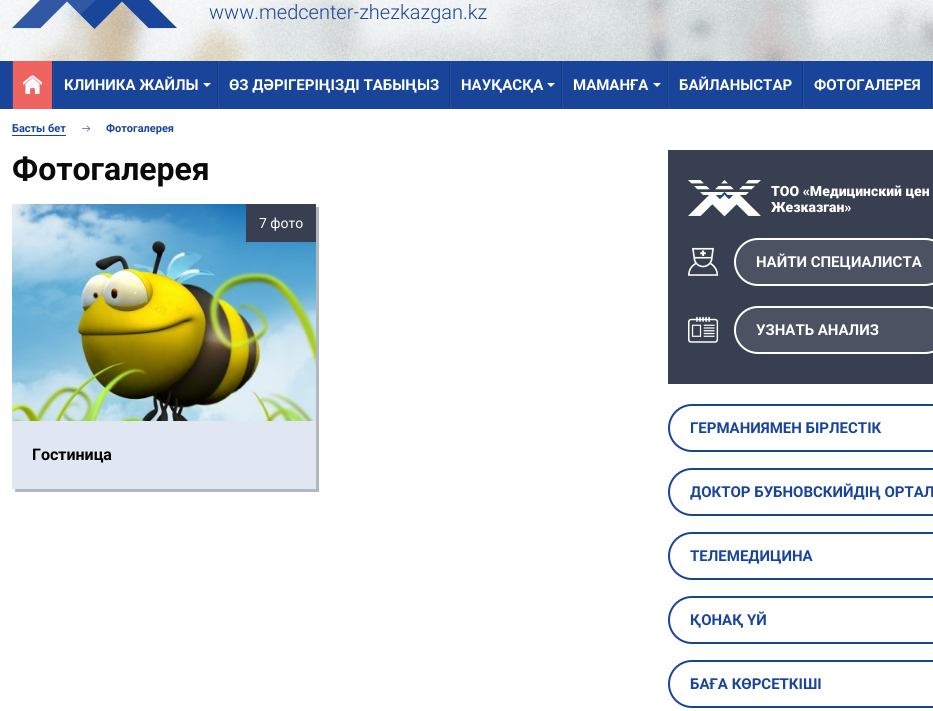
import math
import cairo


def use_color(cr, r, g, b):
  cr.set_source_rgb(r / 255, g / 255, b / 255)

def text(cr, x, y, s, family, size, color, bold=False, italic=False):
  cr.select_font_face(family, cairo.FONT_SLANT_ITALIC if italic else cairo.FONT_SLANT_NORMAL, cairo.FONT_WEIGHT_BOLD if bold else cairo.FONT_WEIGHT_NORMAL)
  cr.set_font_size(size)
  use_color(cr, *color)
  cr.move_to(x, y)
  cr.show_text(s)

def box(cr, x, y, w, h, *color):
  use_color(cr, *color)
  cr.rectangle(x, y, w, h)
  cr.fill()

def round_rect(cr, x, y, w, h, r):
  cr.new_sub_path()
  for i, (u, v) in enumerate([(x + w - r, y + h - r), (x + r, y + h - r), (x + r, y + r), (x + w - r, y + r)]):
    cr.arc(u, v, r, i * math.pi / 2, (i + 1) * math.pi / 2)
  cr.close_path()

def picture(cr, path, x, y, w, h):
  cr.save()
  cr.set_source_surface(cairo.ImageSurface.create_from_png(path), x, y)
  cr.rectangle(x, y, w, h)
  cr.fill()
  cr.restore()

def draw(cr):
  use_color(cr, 255, 255, 255)
  cr.paint()
  picture(cr, "img_01.png", 0, 0, 933, 61)
  picture(cr, "img_02.png", 12, 0, 165, 29)
  box(cr, 0, 61, 931, 48, 24, 68, 154)
  box(cr, 13, 61, 39, 48, 239, 100, 97)
  box(cr, 52, 61, 1, 48, 21, 59, 131)
  box(cr, 12, 61, 1, 48, 37, 79, 159)
  picture(cr, "img_03.png", 23, 75, 19, 19)
  box(cr, 217, 61, 1, 48, 21, 59, 131)
  box(cr, 53, 61, 1, 48, 37, 79, 159)
  use_color(cr, 255, 255, 255)
  cr.new_path()
  cr.move_to(203, 83)
  cr.line_to(211, 83)
  cr.line_to(207, 87)
  cr.close_path()
  cr.fill()
  box(cr, 449, 61, 1, 48, 21, 59, 131)
  box(cr, 218, 61, 1, 48, 37, 79, 159)
  box(cr, 561, 61, 1, 48, 21, 59, 131)
  box(cr, 450, 61, 1, 48, 37, 79, 159)
  use_color(cr, 255, 255, 255)
  cr.new_path()
  cr.move_to(547, 83)
  cr.line_to(555, 83)
  cr.line_to(551, 87)
  cr.close_path()
  cr.fill()
  box(cr, 667, 61, 1, 48, 21, 59, 131)
  box(cr, 562, 61, 1, 48, 37, 79, 159)
  use_color(cr, 255, 255, 255)
  cr.new_path()
  cr.move_to(653, 83)
  cr.line_to(661, 83)
  cr.line_to(657, 87)
  cr.close_path()
  cr.fill()
  box(cr, 802, 61, 1, 48, 21, 59, 131)
  box(cr, 668, 61, 1, 48, 37, 79, 159)
  box(cr, 931, 61, 1, 48, 21, 59, 131)
  box(cr, 803, 61, 1, 48, 37, 79, 159)
  box(cr, 932, 61, 1, 48, 37, 79, 159)
  box(cr, 12, 135, 54, 1, 24, 68, 154)
  picture(cr, "img_04.png", 82, 125, 8, 7)
  use_color(cr, 177, 183, 193)
  cr.new_path()
  cr.move_to(15, 489)
  cr.line_to(15, 492)
  cr.line_to(319, 492)
  cr.line_to(319, 207)
  cr.line_to(316, 207)
  cr.line_to(316, 489)
  cr.close_path()
  cr.fill()
  picture(cr, "img_05.png", 12, 204, 304, 217)
  box(cr, 246, 204, 70, 38, 56, 63, 81)
  box(cr, 12, 421, 304, 68, 225, 231, 242)
  box(cr, 668, 150, 265, 234, 56, 63, 81)
  picture(cr, "img_06.png", 688, 180, 73, 37)
  picture(cr, "img_07.png", 688, 247, 31, 29)
  use_color(cr, 76, 82, 98)
  round_rect(cr, 735, 239, 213, 46, 23)
  cr.fill_preserve()
  use_color(cr, 255, 255, 255)
  cr.stroke()
  picture(cr, "img_08.png", 688, 316, 31, 27)
  use_color(cr, 76, 82, 98)
  round_rect(cr, 735, 307, 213, 46, 23)
  cr.fill_preserve()
  use_color(cr, 255, 255, 255)
  cr.stroke()
  round_rect(cr, 669, 405, 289, 46, 23)
  use_color(cr, 24, 68, 154)
  cr.stroke()
  round_rect(cr, 669, 469, 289, 46, 23)
  cr.stroke()
  round_rect(cr, 669, 533, 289, 46, 23)
  cr.stroke()
  round_rect(cr, 669, 597, 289, 46, 23)
  cr.stroke()
  round_rect(cr, 669, 661, 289, 46, 23)
  cr.stroke()
  text(cr, 209, 19, "www.medcenter-zhezkazgan.kz", "Roboto Light", 20, (24, 68, 154))
  text(cr, 64, 90, "КЛИНИКА ЖАЙЛЫ", "Roboto", 15, (255, 255, 255), bold=True)
  text(cr, 229, 90, "ӨЗ ДӘРІГЕРІҢІЗДІ ТАБЫҢЫЗ", "Roboto", 15, (255, 255, 255), bold=True)
  text(cr, 461, 90, "НАУҚАСҚА", "Roboto", 15, (255, 255, 255), bold=True)
  text(cr, 573, 90, "МАМАНҒА", "Roboto", 15, (255, 255, 255), bold=True)
  text(cr, 679, 90, "БАЙЛАНЫСТАР", "Roboto", 15, (255, 255, 255), bold=True)
  text(cr, 814, 90, "ФОТОГАЛЕРЕЯ", "Roboto", 15, (255, 255, 255), bold=True)
  text(cr, 12, 132, "Басты бет", "Roboto", 11, (24, 68, 154), bold=True)
  text(cr, 106, 132, "Фотогалерея", "Roboto", 11, (24, 68, 154), bold=True)
  text(cr, 12, 180, "Фотогалерея", "Roboto", 32, (10, 10, 10), bold=True)
  text(cr, 259, 228, "7 фото", "Roboto", 14, (255, 255, 255))
  text(cr, 32, 460, "Гостиница", "Roboto", 16, (0, 0, 0), bold=True)
  text(cr, 771, 196, "ТОО «Медицинский цен", "Roboto Black", 14, (255, 255, 255))
  text(cr, 771, 212, "Жезказган»", "Roboto Black", 14, (255, 255, 255))
  text(cr, 756, 267, "НАЙТИ СПЕЦИАЛИСТА", "Roboto", 15, (255, 255, 255), bold=True)
  text(cr, 756, 335, "УЗНАТЬ АНАЛИЗ", "Roboto", 15, (255, 255, 255), bold=True)
  text(cr, 690, 433, "ГЕРМАНИЯМЕН БІРЛЕСТІК", "Roboto", 15, (24, 68, 154), bold=True)
  text(cr, 690, 497, "ДОКТОР БУБНОВСКИЙДІҢ ОРТАЛ", "Roboto", 15, (24, 68, 154), bold=True)
  text(cr, 690, 561, "ТЕЛЕМЕДИЦИНА", "Roboto", 15, (24, 68, 154), bold=True)
  text(cr, 690, 625, "ҚОНАҚ ҮЙ", "Roboto", 15, (24, 68, 154), bold=True)
  text(cr, 690, 689, "БАҒА КӨРСЕТКІШІ", "Roboto", 15, (24, 68, 154), bold=True)


surface = cairo.ImageSurface(cairo.FORMAT_RGB24, 933, 711)
cr = cairo.Context(surface)
options = cairo.FontOptions()
options.set_hint_metrics(cairo.HINT_METRICS_OFF)
options.set_hint_style(cairo.HINT_STYLE_NONE)
cr.set_font_options(options)
cr.set_miter_limit(4)
draw(cr)
surface.write_to_png("out.png")
